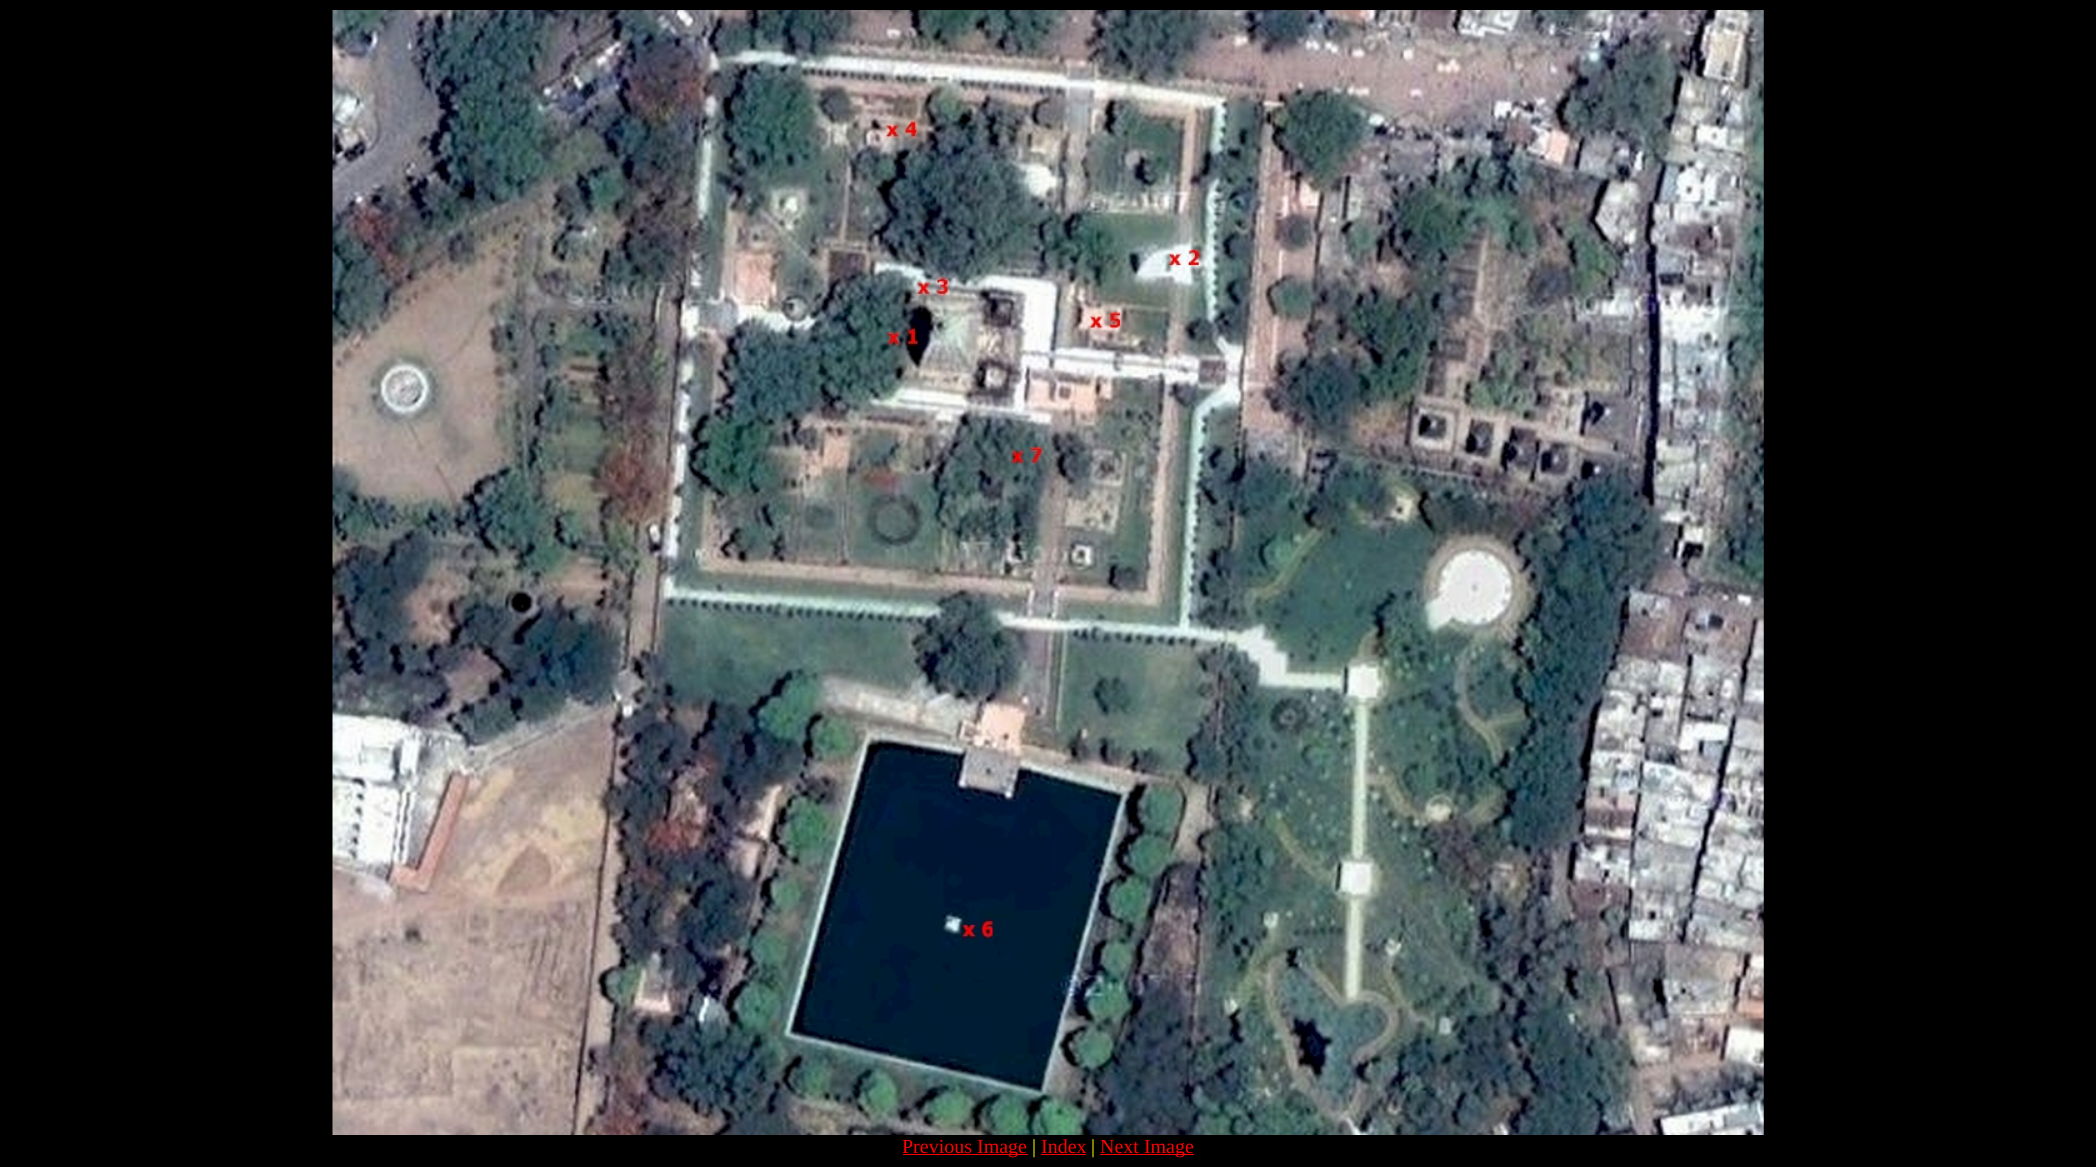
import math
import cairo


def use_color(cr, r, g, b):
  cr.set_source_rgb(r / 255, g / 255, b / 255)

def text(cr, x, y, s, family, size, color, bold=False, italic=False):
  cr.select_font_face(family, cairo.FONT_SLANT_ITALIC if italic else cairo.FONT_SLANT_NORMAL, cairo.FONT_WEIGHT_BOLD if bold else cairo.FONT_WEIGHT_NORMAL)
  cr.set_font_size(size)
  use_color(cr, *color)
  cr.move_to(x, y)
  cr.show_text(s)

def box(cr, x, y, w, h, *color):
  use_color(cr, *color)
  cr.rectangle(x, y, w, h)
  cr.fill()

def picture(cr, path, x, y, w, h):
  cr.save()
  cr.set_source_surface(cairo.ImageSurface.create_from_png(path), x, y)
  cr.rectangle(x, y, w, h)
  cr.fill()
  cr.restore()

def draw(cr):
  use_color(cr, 0, 0, 0)
  cr.paint()
  picture(cr, "img_01.png", 332, 10, 1432, 1125)
  box(cr, 903, 1154, 125, 1, 255, 0, 0)
  box(cr, 1041, 1154, 45, 1, 255, 0, 0)
  box(cr, 1100, 1154, 94, 1, 255, 0, 0)
  text(cr, 902, 1153, "Previous Image", "Liberation Serif", 20, (255, 0, 0))
  text(cr, 1032, 1153, "|", "Liberation Serif", 20, (255, 255, 0))
  text(cr, 1041, 1153, "Index", "Liberation Serif", 20, (255, 0, 0))
  text(cr, 1091, 1153, "|", "Liberation Serif", 20, (255, 255, 0))
  text(cr, 1100, 1153, "Next Image", "Liberation Serif", 20, (255, 0, 0))


surface = cairo.ImageSurface(cairo.FORMAT_RGB24, 2096, 1167)
cr = cairo.Context(surface)
options = cairo.FontOptions()
options.set_hint_metrics(cairo.HINT_METRICS_OFF)
options.set_hint_style(cairo.HINT_STYLE_NONE)
cr.set_font_options(options)
cr.set_miter_limit(4)
draw(cr)
surface.write_to_png("out.png")
